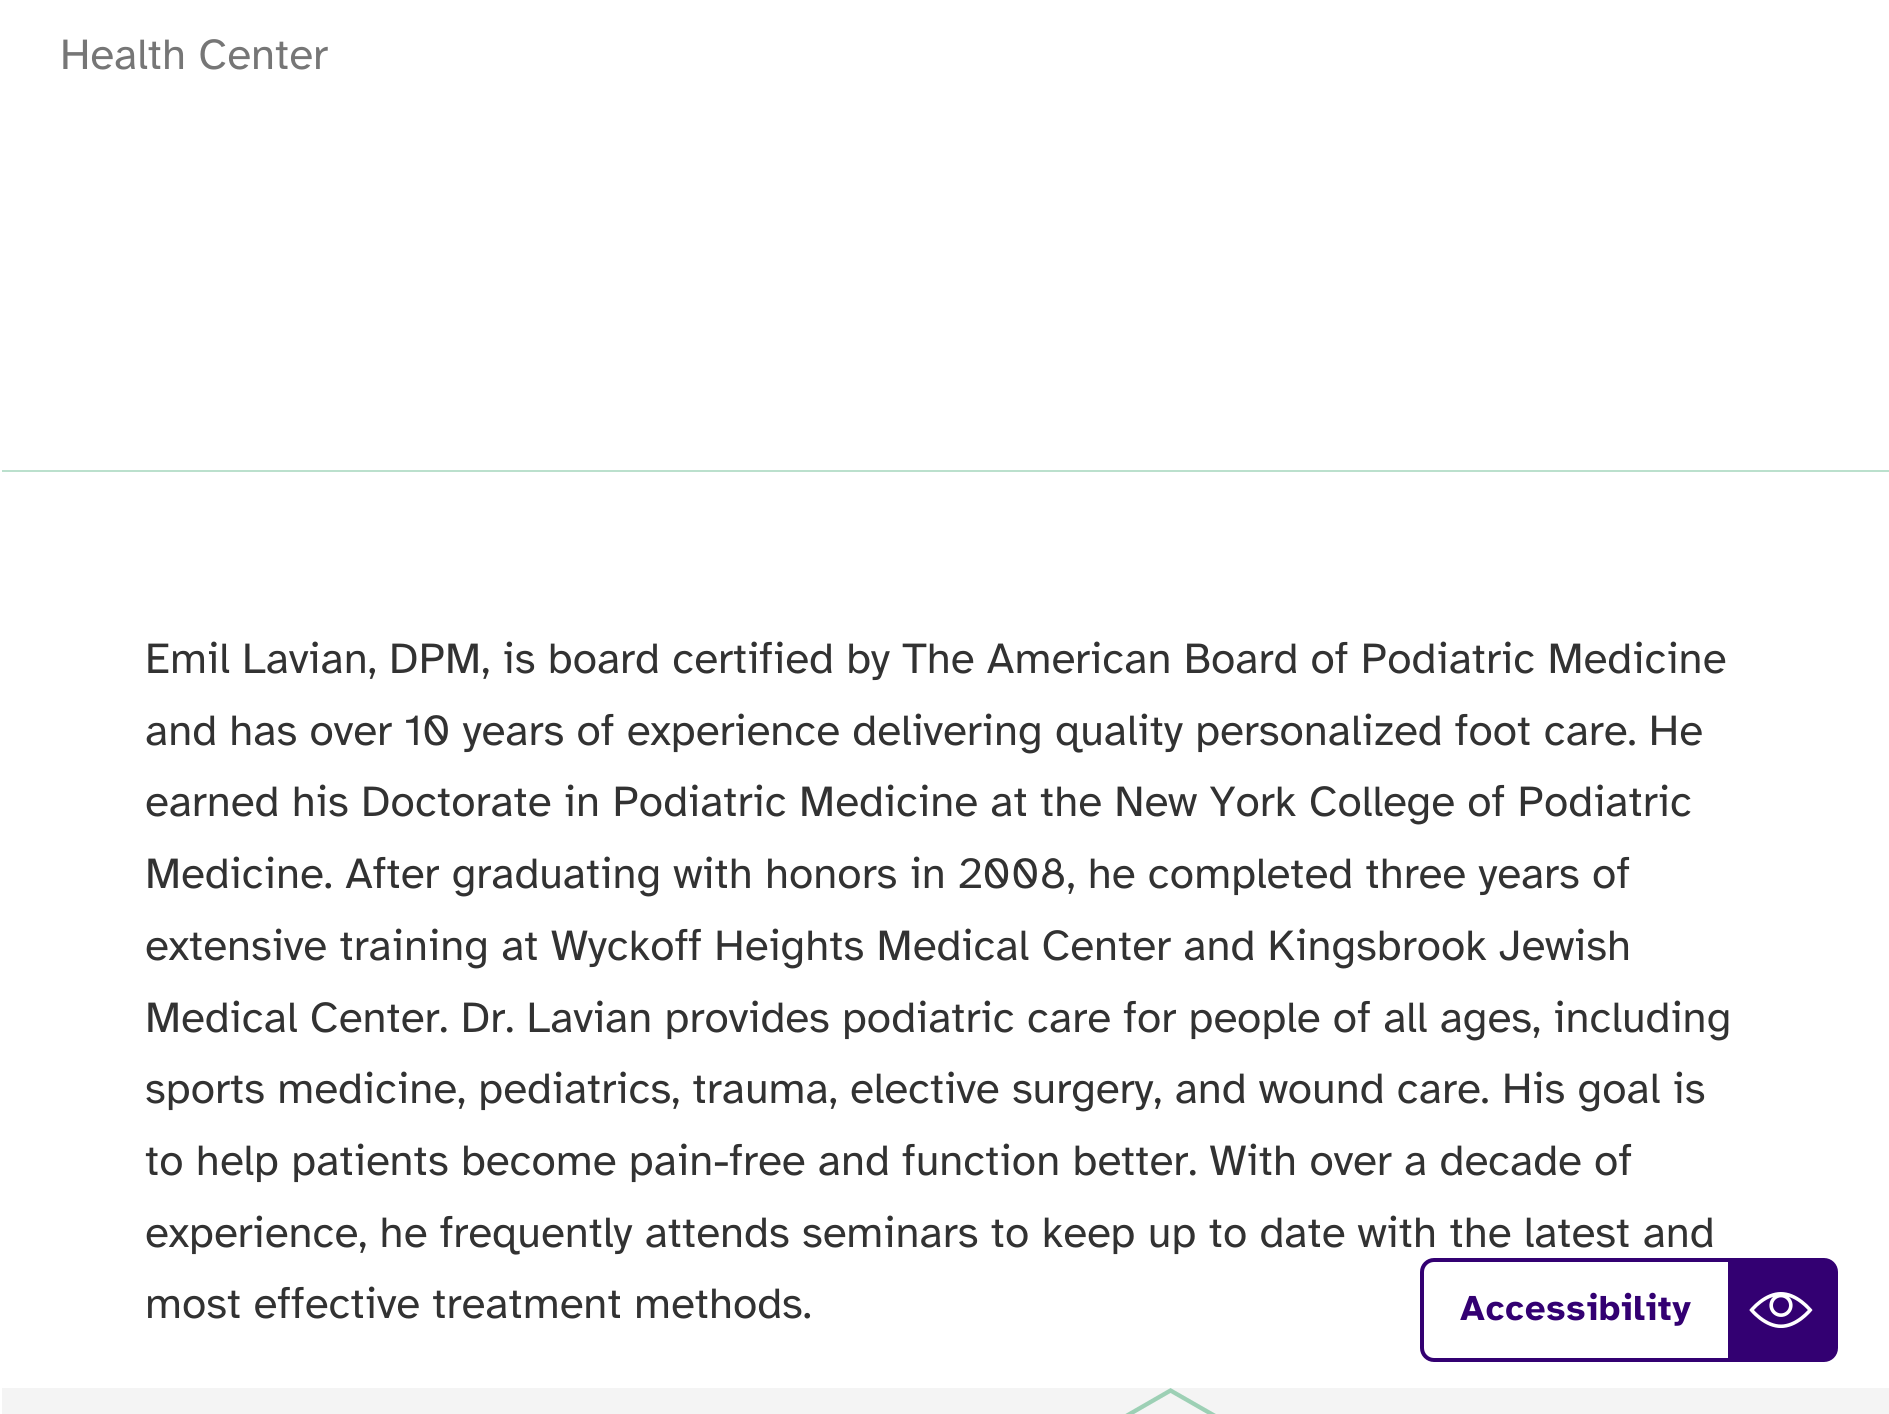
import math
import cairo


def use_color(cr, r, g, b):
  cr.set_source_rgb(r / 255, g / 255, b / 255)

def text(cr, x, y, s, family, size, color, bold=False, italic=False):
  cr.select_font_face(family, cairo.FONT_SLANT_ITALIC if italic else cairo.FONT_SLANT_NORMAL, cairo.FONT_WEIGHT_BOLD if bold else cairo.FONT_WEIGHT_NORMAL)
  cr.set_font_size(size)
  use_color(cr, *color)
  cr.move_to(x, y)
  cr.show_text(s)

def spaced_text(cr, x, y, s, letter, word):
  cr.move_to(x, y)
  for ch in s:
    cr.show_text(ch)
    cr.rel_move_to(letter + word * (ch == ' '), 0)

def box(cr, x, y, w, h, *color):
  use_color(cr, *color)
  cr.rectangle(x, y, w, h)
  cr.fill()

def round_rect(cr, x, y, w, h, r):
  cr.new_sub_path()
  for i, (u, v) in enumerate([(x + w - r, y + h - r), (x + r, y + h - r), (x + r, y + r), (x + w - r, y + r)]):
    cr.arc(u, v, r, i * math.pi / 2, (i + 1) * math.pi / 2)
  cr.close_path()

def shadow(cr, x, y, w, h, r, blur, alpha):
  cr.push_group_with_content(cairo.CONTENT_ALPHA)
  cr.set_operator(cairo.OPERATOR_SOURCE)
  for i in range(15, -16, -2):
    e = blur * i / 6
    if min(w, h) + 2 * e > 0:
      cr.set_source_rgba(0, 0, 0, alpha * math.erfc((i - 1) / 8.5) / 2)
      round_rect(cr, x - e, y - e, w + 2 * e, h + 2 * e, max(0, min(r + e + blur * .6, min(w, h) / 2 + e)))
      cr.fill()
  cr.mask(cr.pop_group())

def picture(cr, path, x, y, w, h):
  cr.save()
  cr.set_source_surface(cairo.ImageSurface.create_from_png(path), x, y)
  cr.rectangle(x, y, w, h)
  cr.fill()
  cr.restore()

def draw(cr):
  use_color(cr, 255, 255, 255)
  cr.paint()
  box(cr, 2, 470, 1887, 2, 187, 224, 205)
  box(cr, 2, 1388, 1887, 26, 244, 244, 244)
  cr.new_path()
  cr.move_to(1170.5, 1390.5)
  cr.line_to(1441, 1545.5)
  cr.line_to(1170.5, 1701.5)
  cr.line_to(899.5, 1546.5)
  cr.close_path()
  use_color(cr, 157, 208, 181)
  cr.set_line_width(4.3)
  cr.stroke()
  use_color(cr, 255, 255, 255)
  shadow(cr, 1420, 1258, 418, 104, 14, 10, 0.5)
  use_color(cr, 51, 0, 114)
  round_rect(cr, 1422, 1260, 414, 100, 12)
  cr.fill_preserve()
  cr.set_line_width(4)
  cr.stroke()
  use_color(cr, 255, 255, 255)
  cr.new_path()
  cr.move_to(1434, 1262)
  cr.line_to(1728, 1262)
  cr.line_to(1728, 1358)
  cr.line_to(1434, 1358)
  cr.curve_to(1428.5, 1358, 1424, 1353.5, 1424, 1348)
  cr.line_to(1424, 1272)
  cr.curve_to(1424, 1266.5, 1428.5, 1262, 1434, 1262)
  cr.close_path()
  cr.fill()
  picture(cr, "img_01.png", 1749, 1292, 64, 36)
  text(cr, 60, 69, "Health Center", "Atkinson Hyperlegible", 44, (118, 118, 118))
  text(cr, 145, 673, "Emil Lavian, DPM, is board certified by The American Board of Podiatric Medicine", "Atkinson Hyperlegible", 44, (50, 50, 50))
  text(cr, 145, 745, "and has over 10 years of experience delivering quality personalized foot care. He", "Atkinson Hyperlegible", 44, (50, 50, 50))
  text(cr, 145, 816, "earned his Doctorate in Podiatric Medicine at the New York College of Podiatric", "Atkinson Hyperlegible", 44, (50, 50, 50))
  text(cr, 145, 888, "Medicine. After graduating with honors in 2008, he completed three years of", "Atkinson Hyperlegible", 44, (50, 50, 50))
  text(cr, 145, 960, "extensive training at Wyckoff Heights Medical Center and Kingsbrook Jewish", "Atkinson Hyperlegible", 44, (50, 50, 50))
  text(cr, 145, 1032, "Medical Center. Dr. Lavian provides podiatric care for people of all ages, including", "Atkinson Hyperlegible", 44, (50, 50, 50))
  text(cr, 145, 1103, "sports medicine, pediatrics, trauma, elective surgery, and wound care. His goal is", "Atkinson Hyperlegible", 44, (50, 50, 50))
  text(cr, 145, 1175, "to help patients become pain-free and function better. With over a decade of", "Atkinson Hyperlegible", 44, (50, 50, 50))
  text(cr, 145, 1247, "experience, he frequently attends seminars to keep up to date with the latest and", "Atkinson Hyperlegible", 44, (50, 50, 50))
  text(cr, 145, 1318, "most effective treatment methods.", "Atkinson Hyperlegible", 44, (50, 50, 50))
  cr.select_font_face("Atkinson Hyperlegible", cairo.FONT_SLANT_NORMAL, cairo.FONT_WEIGHT_BOLD)
  cr.set_font_size(36)
  use_color(cr, 51, 0, 114)
  spaced_text(cr, 1460, 1320, "Accessibility", 0.9, 0)


surface = cairo.ImageSurface(cairo.FORMAT_RGB24, 1889, 1414)
cr = cairo.Context(surface)
options = cairo.FontOptions()
options.set_hint_metrics(cairo.HINT_METRICS_OFF)
options.set_hint_style(cairo.HINT_STYLE_NONE)
cr.set_font_options(options)
cr.set_miter_limit(4)
draw(cr)
surface.write_to_png("out.png")
